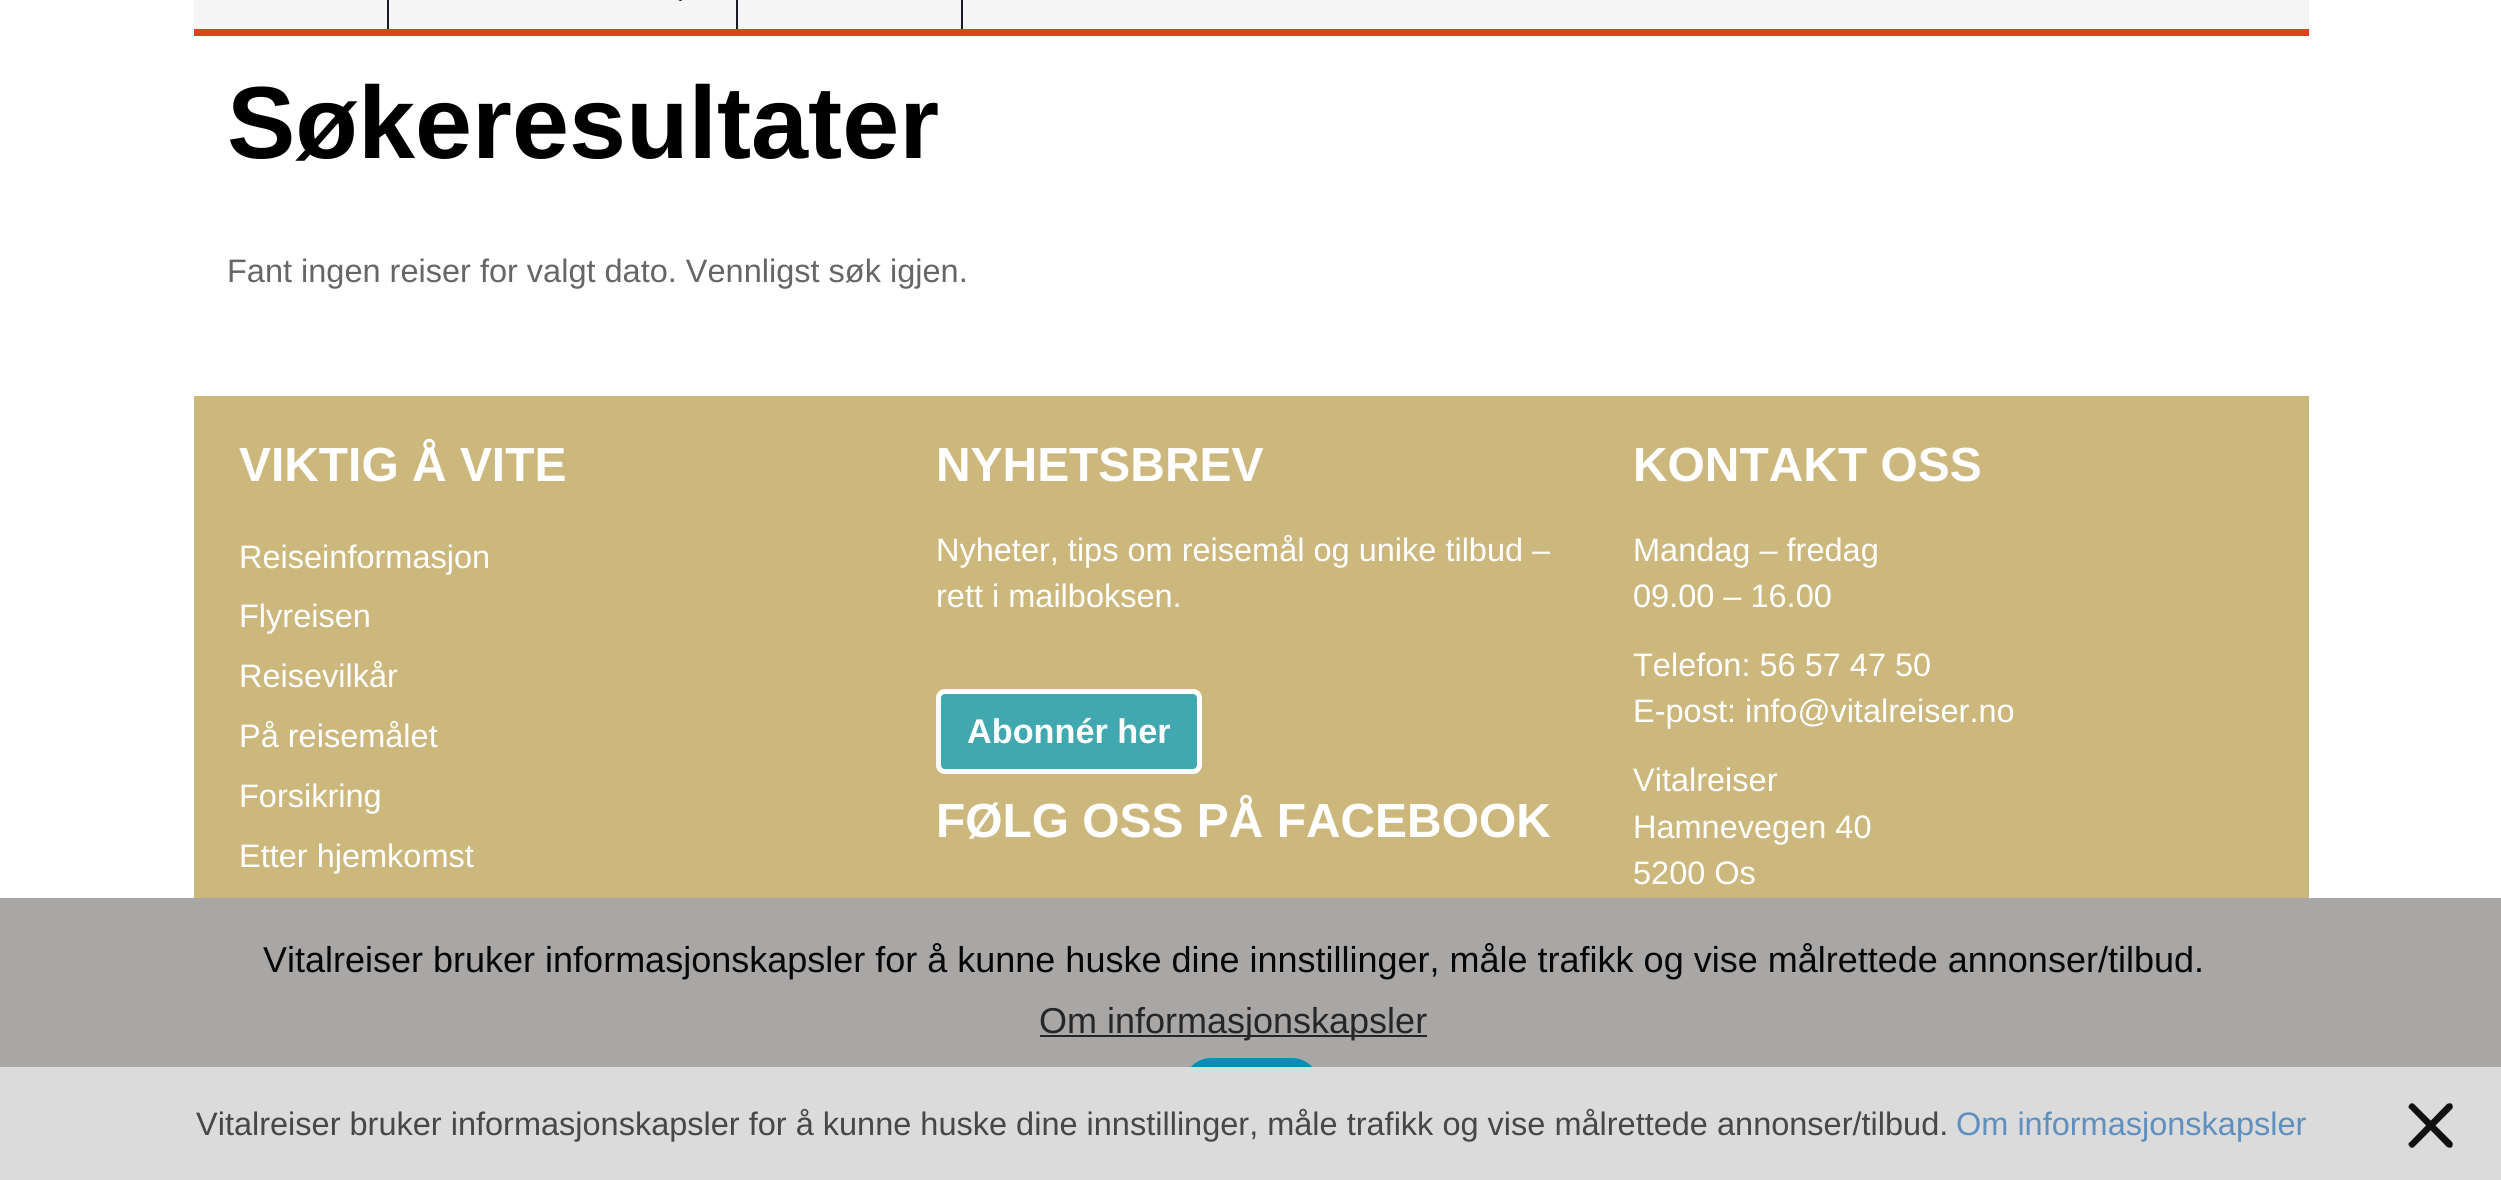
import math
import cairo


def use_color(cr, r, g, b):
  cr.set_source_rgb(r / 255, g / 255, b / 255)

def text(cr, x, y, s, family, size, color, bold=False, italic=False):
  cr.select_font_face(family, cairo.FONT_SLANT_ITALIC if italic else cairo.FONT_SLANT_NORMAL, cairo.FONT_WEIGHT_BOLD if bold else cairo.FONT_WEIGHT_NORMAL)
  cr.set_font_size(size)
  use_color(cr, *color)
  cr.move_to(x, y)
  cr.show_text(s)

def box(cr, x, y, w, h, *color):
  use_color(cr, *color)
  cr.rectangle(x, y, w, h)
  cr.fill()

def round_rect(cr, x, y, w, h, r):
  cr.new_sub_path()
  for i, (u, v) in enumerate([(x + w - r, y + h - r), (x + r, y + h - r), (x + r, y + r), (x + w - r, y + r)]):
    cr.arc(u, v, r, i * math.pi / 2, (i + 1) * math.pi / 2)
  cr.close_path()

def picture(cr, path, x, y, w, h):
  cr.save()
  cr.set_source_surface(cairo.ImageSurface.create_from_png(path), x, y)
  cr.rectangle(x, y, w, h)
  cr.fill()
  cr.restore()

def draw(cr):
  use_color(cr, 255, 255, 255)
  cr.paint()
  box(cr, 194, 0, 2115, 29, 246, 245, 246)
  box(cr, 194, 29, 2115, 7, 220, 68, 31)
  box(cr, 387, 0, 2, 29, 27, 28, 35)
  picture(cr, "img_01.png", 678, 0, 5, 1)
  box(cr, 736, 0, 2, 29, 27, 28, 35)
  box(cr, 961, 0, 2, 29, 27, 28, 35)
  box(cr, 194, 396, 2115, 502, 204, 184, 125)
  use_color(cr, 66, 168, 176)
  round_rect(cr, 938.5, 691.5, 261, 80, 6.5)
  cr.fill_preserve()
  use_color(cr, 255, 255, 255)
  cr.set_line_width(5)
  cr.stroke()
  box(cr, 0, 898, 2501, 169, 169, 166, 166)
  box(cr, 1040, 1035, 387, 2, 39, 38, 38)
  use_color(cr, 7, 141, 185)
  round_rect(cr, 1184, 1058, 135, 87, 27)
  cr.fill()
  box(cr, 0, 1067, 2501, 113, 219, 219, 219)
  use_color(cr, 17, 17, 17)
  cr.new_path()
  cr.move_to(2414, 1104)
  cr.line_to(2452, 1142)
  cr.curve_to(2453, 1143, 2453, 1145, 2452, 1147)
  cr.curve_to(2451, 1148, 2449, 1148, 2447, 1147)
  cr.line_to(2410, 1109)
  cr.curve_to(2408, 1108, 2408, 1106, 2410, 1104)
  cr.curve_to(2411, 1103, 2413, 1103, 2414, 1104)
  cr.close_path()
  cr.fill()
  cr.new_path()
  cr.move_to(2410, 1142)
  cr.line_to(2447, 1104)
  cr.curve_to(2449, 1103, 2451, 1103, 2452, 1104)
  cr.curve_to(2453, 1106, 2453, 1108, 2452, 1109)
  cr.line_to(2414, 1147)
  cr.curve_to(2413, 1148, 2411, 1148, 2410, 1147)
  cr.curve_to(2408, 1145, 2408, 1143, 2410, 1142)
  cr.close_path()
  cr.fill()
  text(cr, 227, 158, "Søkeresultater", "Liberation Sans", 102.5, (0, 0, 0), bold=True)
  text(cr, 227, 282, "Fant ingen reiser for valgt dato. Vennligst søk igjen.", "Liberation Sans", 32.5, (102, 102, 102))
  text(cr, 239, 481, "VIKTIG Å VITE", "Liberation Sans", 47.9, (255, 255, 255), bold=True)
  text(cr, 239, 568, "Reiseinformasjon", "Liberation Sans", 32.5, (255, 255, 255))
  text(cr, 239, 627, "Flyreisen", "Liberation Sans", 32.5, (255, 255, 255))
  text(cr, 239, 687, "Reisevilkår", "Liberation Sans", 32.5, (255, 255, 255))
  text(cr, 239, 747, "På reisemålet", "Liberation Sans", 32.5, (255, 255, 255))
  text(cr, 239, 807, "Forsikring", "Liberation Sans", 32.5, (255, 255, 255))
  text(cr, 239, 867, "Etter hjemkomst", "Liberation Sans", 32.5, (255, 255, 255))
  text(cr, 936, 481, "NYHETSBREV", "Liberation Sans", 47.9, (255, 255, 255), bold=True)
  text(cr, 936, 561, "Nyheter, tips om reisemål og unike tilbud –", "Liberation Sans", 32.5, (255, 255, 255))
  text(cr, 936, 607, "rett i mailboksen.", "Liberation Sans", 32.5, (255, 255, 255))
  text(cr, 967, 743, "Abonnér her", "Liberation Sans", 34.25, (255, 255, 255), bold=True)
  text(cr, 936, 837, "FØLG OSS PÅ FACEBOOK", "Liberation Sans", 47.9, (255, 255, 255), bold=True)
  text(cr, 1633, 481, "KONTAKT OSS", "Liberation Sans", 47.9, (255, 255, 255), bold=True)
  text(cr, 1633, 561, "Mandag – fredag", "Liberation Sans", 32.5, (255, 255, 255))
  text(cr, 1633, 607, "09.00 – 16.00", "Liberation Sans", 32.5, (255, 255, 255))
  text(cr, 1633, 676, "Telefon: 56 57 47 50", "Liberation Sans", 32.5, (255, 255, 255))
  text(cr, 1633, 722, "E-post: info@vitalreiser.no", "Liberation Sans", 32.5, (255, 255, 255))
  text(cr, 1633, 791, "Vitalreiser", "Liberation Sans", 32.5, (255, 255, 255))
  text(cr, 1633, 838, "Hamnevegen 40", "Liberation Sans", 32.5, (255, 255, 255))
  text(cr, 1633, 884, "5200 Os", "Liberation Sans", 32.5, (255, 255, 255))
  text(cr, 263, 972, "Vitalreiser bruker informasjonskapsler for å kunne huske dine innstillinger, måle trafikk og vise målrettede annonser/tilbud.", "Liberation Sans", 36, (6, 6, 6))
  text(cr, 1039, 1033, "Om informasjonskapsler", "Liberation Sans", 36, (39, 38, 38))
  text(cr, 196, 1135, "Vitalreiser bruker informasjonskapsler for å kunne huske dine innstillinger, måle trafikk og vise målrettede annonser/tilbud.", "Liberation Sans", 32.5, (71, 71, 71))
  text(cr, 1956, 1135, "Om informasjonskapsler", "Liberation Sans", 32.5, (95, 143, 191))


surface = cairo.ImageSurface(cairo.FORMAT_RGB24, 2501, 1180)
cr = cairo.Context(surface)
options = cairo.FontOptions()
options.set_hint_metrics(cairo.HINT_METRICS_OFF)
options.set_hint_style(cairo.HINT_STYLE_NONE)
cr.set_font_options(options)
cr.set_miter_limit(4)
draw(cr)
surface.write_to_png("out.png")
